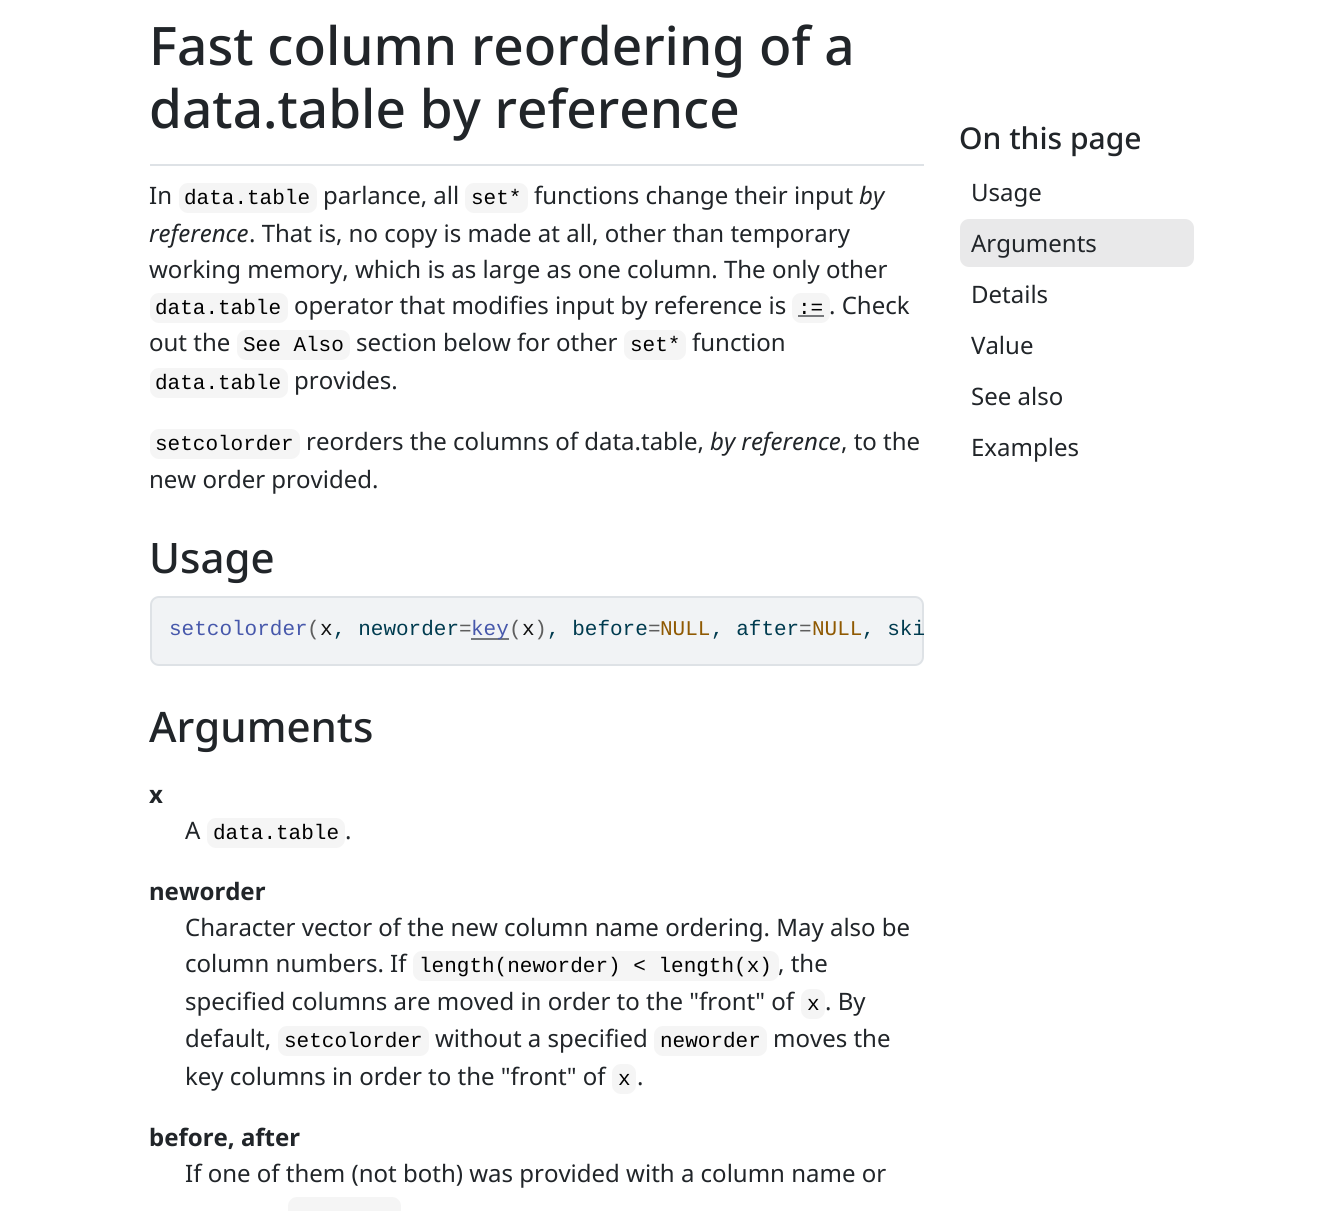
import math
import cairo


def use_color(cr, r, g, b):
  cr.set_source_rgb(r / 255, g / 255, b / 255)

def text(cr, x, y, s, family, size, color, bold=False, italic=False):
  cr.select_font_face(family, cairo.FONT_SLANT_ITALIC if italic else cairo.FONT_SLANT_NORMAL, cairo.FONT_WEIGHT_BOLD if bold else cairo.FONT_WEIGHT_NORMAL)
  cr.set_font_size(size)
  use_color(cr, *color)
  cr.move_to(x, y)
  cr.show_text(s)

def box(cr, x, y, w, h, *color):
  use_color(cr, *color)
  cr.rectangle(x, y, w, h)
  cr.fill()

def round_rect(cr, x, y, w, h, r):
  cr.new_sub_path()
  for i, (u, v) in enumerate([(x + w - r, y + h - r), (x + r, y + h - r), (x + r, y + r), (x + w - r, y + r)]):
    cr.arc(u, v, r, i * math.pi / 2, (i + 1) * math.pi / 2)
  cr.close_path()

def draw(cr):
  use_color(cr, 255, 255, 255)
  cr.paint()
  box(cr, 150, 164, 774, 2, 222, 226, 230)
  use_color(cr, 245, 245, 245)
  round_rect(cr, 179, 183, 138, 30, 9)
  cr.fill()
  round_rect(cr, 465, 183, 63, 30, 9)
  cr.fill()
  round_rect(cr, 150, 293, 138, 30, 9)
  cr.fill()
  round_rect(cr, 792, 293, 38, 30, 9)
  cr.fill()
  box(cr, 798, 315, 26, 2, 118, 120, 123)
  use_color(cr, 245, 245, 245)
  round_rect(cr, 237, 330, 113, 30, 9)
  cr.fill()
  round_rect(cr, 624, 330, 62, 30, 9)
  cr.fill()
  round_rect(cr, 150, 368, 138, 30, 9)
  cr.fill()
  round_rect(cr, 150, 429, 150, 30, 9)
  cr.fill()
  use_color(cr, 241, 243, 245)
  round_rect(cr, 151, 597, 772, 68, 8)
  cr.fill_preserve()
  use_color(cr, 222, 226, 230)
  cr.stroke()
  box(cr, 471, 638, 38, 2, 116, 119, 123)
  use_color(cr, 245, 245, 245)
  round_rect(cr, 207, 818, 138, 30, 9)
  cr.fill()
  round_rect(cr, 413, 951, 366, 30, 9)
  cr.fill()
  round_rect(cr, 801, 989, 24, 30, 9)
  cr.fill()
  round_rect(cr, 278, 1026, 151, 30, 9)
  cr.fill()
  round_rect(cr, 654, 1026, 113, 30, 9)
  cr.fill()
  round_rect(cr, 612, 1064, 24, 30, 9)
  cr.fill()
  round_rect(cr, 288, 1197, 113, 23, 9)
  cr.fill()
  use_color(cr, 233, 233, 234)
  round_rect(cr, 960, 219, 234, 48, 9)
  cr.fill()
  text(cr, 149, 65, "Fast column reordering of a", "Noto Sans Medium", 53.1, (33, 37, 41))
  text(cr, 149, 128, "data.table by reference", "Noto Sans Medium", 53.1, (33, 37, 41))
  text(cr, 149, 204, "In", "Noto Sans", 24, (33, 37, 41))
  text(cr, 184, 204, "data.table", "Liberation Mono", 21, (0, 0, 0))
  text(cr, 323, 204, "parlance, all", "Noto Sans", 24, (33, 37, 41))
  text(cr, 471, 204, "set*", "Liberation Mono", 21, (0, 0, 0))
  text(cr, 534, 204, "functions change their input", "Noto Sans", 24, (33, 37, 41))
  text(cr, 859, 204, "by", "Noto Sans", 24, (33, 37, 41), italic=True)
  text(cr, 149, 242, "reference", "Noto Sans", 24, (33, 37, 41), italic=True)
  text(cr, 249, 242, ". That is, no copy is made at all, other than temporary", "Noto Sans", 24, (33, 37, 41))
  text(cr, 149, 278, "working memory, which is as large as one column. The only other", "Noto Sans", 24, (33, 37, 41))
  text(cr, 155, 314, "data.table", "Liberation Mono", 21, (0, 0, 0))
  text(cr, 294, 314, "operator that modifies input by reference is", "Noto Sans", 24, (33, 37, 41))
  text(cr, 798, 314, ":=", "Liberation Mono", 21, (0, 0, 0))
  text(cr, 829, 314, ". Check", "Noto Sans", 24, (33, 37, 41))
  text(cr, 149, 351, "out the", "Noto Sans", 24, (33, 37, 41))
  text(cr, 243, 351, "See Also", "Liberation Mono", 21, (0, 0, 0))
  text(cr, 356, 351, "section below for other", "Noto Sans", 24, (33, 37, 41))
  text(cr, 630, 351, "set*", "Liberation Mono", 21, (0, 0, 0))
  text(cr, 692, 351, "function", "Noto Sans", 24, (33, 37, 41))
  text(cr, 155, 389, "data.table", "Liberation Mono", 21, (0, 0, 0))
  text(cr, 294, 389, "provides.", "Noto Sans", 24, (33, 37, 41))
  text(cr, 155, 450, "setcolorder", "Liberation Mono", 21, (0, 0, 0))
  text(cr, 306, 450, "reorders the columns of data.table,", "Noto Sans", 24, (33, 37, 41))
  text(cr, 710, 450, "by reference", "Noto Sans", 24, (33, 37, 41), italic=True)
  text(cr, 841, 450, ", to the", "Noto Sans", 24, (33, 37, 41))
  text(cr, 149, 488, "new order provided.", "Noto Sans", 24, (33, 37, 41))
  text(cr, 149, 573, "Usage", "Noto Sans Medium", 42, (33, 37, 41))
  text(cr, 169, 635, "setcolorder", "Liberation Mono", 21, (71, 88, 171))
  text(cr, 307, 635, "(", "Liberation Mono", 21, (94, 94, 94))
  text(cr, 320, 635, "x", "Liberation Mono", 21, (17, 17, 17))
  text(cr, 333, 635, ", neworder", "Liberation Mono", 21, (0, 59, 79))
  text(cr, 471, 635, "key", "Liberation Mono", 21, (71, 88, 171))
  text(cr, 509, 635, "( )", "Liberation Mono", 21, (94, 94, 94))
  text(cr, 547, 635, ", before", "Liberation Mono", 21, (0, 59, 79))
  text(cr, 660, 635, "NULL", "Liberation Mono", 21, (143, 89, 2))
  text(cr, 711, 635, ", after", "Liberation Mono", 21, (0, 59, 79))
  text(cr, 812, 635, "NULL", "Liberation Mono", 21, (143, 89, 2))
  text(cr, 862, 635, ", ski", "Liberation Mono", 21, (0, 59, 79))
  text(cr, 459, 635, "=", "Liberation Mono", 21, (94, 94, 94))
  text(cr, 522, 635, "x", "Liberation Mono", 21, (17, 17, 17))
  text(cr, 648, 635, "=", "Liberation Mono", 21, (94, 94, 94))
  text(cr, 799, 635, "=", "Liberation Mono", 21, (94, 94, 94))
  text(cr, 149, 742, "Arguments", "Noto Sans Medium", 42, (33, 37, 41))
  text(cr, 149, 803, "x", "Noto Sans", 24, (33, 37, 41), bold=True)
  text(cr, 185, 839, "A", "Noto Sans", 24, (33, 37, 41))
  text(cr, 213, 839, "data.table", "Liberation Mono", 21, (0, 0, 0))
  text(cr, 345, 839, ".", "Noto Sans", 24, (33, 37, 41))
  text(cr, 149, 900, "neworder", "Noto Sans", 24, (33, 37, 41), bold=True)
  text(cr, 185, 936, "Character vector of the new column name ordering. May also be", "Noto Sans", 24, (33, 37, 41))
  text(cr, 185, 972, "column numbers. If", "Noto Sans", 24, (33, 37, 41))
  text(cr, 419, 972, "length(neworder) < length(x)", "Liberation Mono", 21, (0, 0, 0))
  text(cr, 778, 972, ", the", "Noto Sans", 24, (33, 37, 41))
  text(cr, 185, 1010, "specified columns are moved in order to the \"front\" of", "Noto Sans", 24, (33, 37, 41))
  text(cr, 807, 1010, "x", "Liberation Mono", 21, (0, 0, 0))
  text(cr, 825, 1010, ". By", "Noto Sans", 24, (33, 37, 41))
  text(cr, 185, 1047, "default,", "Noto Sans", 24, (33, 37, 41))
  text(cr, 284, 1047, "setcolorder", "Liberation Mono", 21, (0, 0, 0))
  text(cr, 435, 1047, "without a specified", "Noto Sans", 24, (33, 37, 41))
  text(cr, 660, 1047, "neworder", "Liberation Mono", 21, (0, 0, 0))
  text(cr, 773, 1047, "moves the", "Noto Sans", 24, (33, 37, 41))
  text(cr, 185, 1085, "key columns in order to the \"front\" of", "Noto Sans", 24, (33, 37, 41))
  text(cr, 618, 1085, "x", "Liberation Mono", 21, (0, 0, 0))
  text(cr, 637, 1085, ".", "Noto Sans", 24, (33, 37, 41))
  text(cr, 149, 1146, "before, after", "Noto Sans", 24, (33, 37, 41), bold=True)
  text(cr, 185, 1182, "If one of them (not both) was provided with a column name or", "Noto Sans", 24, (33, 37, 41))
  text(cr, 959, 149, "On this page", "Noto Sans Medium", 30, (33, 37, 41))
  text(cr, 971, 201, "Usage", "Noto Sans", 24, (33, 37, 41))
  text(cr, 971, 252, "Arguments", "Noto Sans", 24, (33, 37, 41))
  text(cr, 971, 303, "Details", "Noto Sans", 24, (33, 37, 41))
  text(cr, 971, 354, "Value", "Noto Sans", 24, (33, 37, 41))
  text(cr, 971, 405, "See also", "Noto Sans", 24, (33, 37, 41))
  text(cr, 971, 456, "Examples", "Noto Sans", 24, (33, 37, 41))


surface = cairo.ImageSurface(cairo.FORMAT_RGB24, 1342, 1211)
cr = cairo.Context(surface)
options = cairo.FontOptions()
options.set_hint_metrics(cairo.HINT_METRICS_OFF)
options.set_hint_style(cairo.HINT_STYLE_NONE)
cr.set_font_options(options)
cr.set_miter_limit(4)
draw(cr)
surface.write_to_png("out.png")
